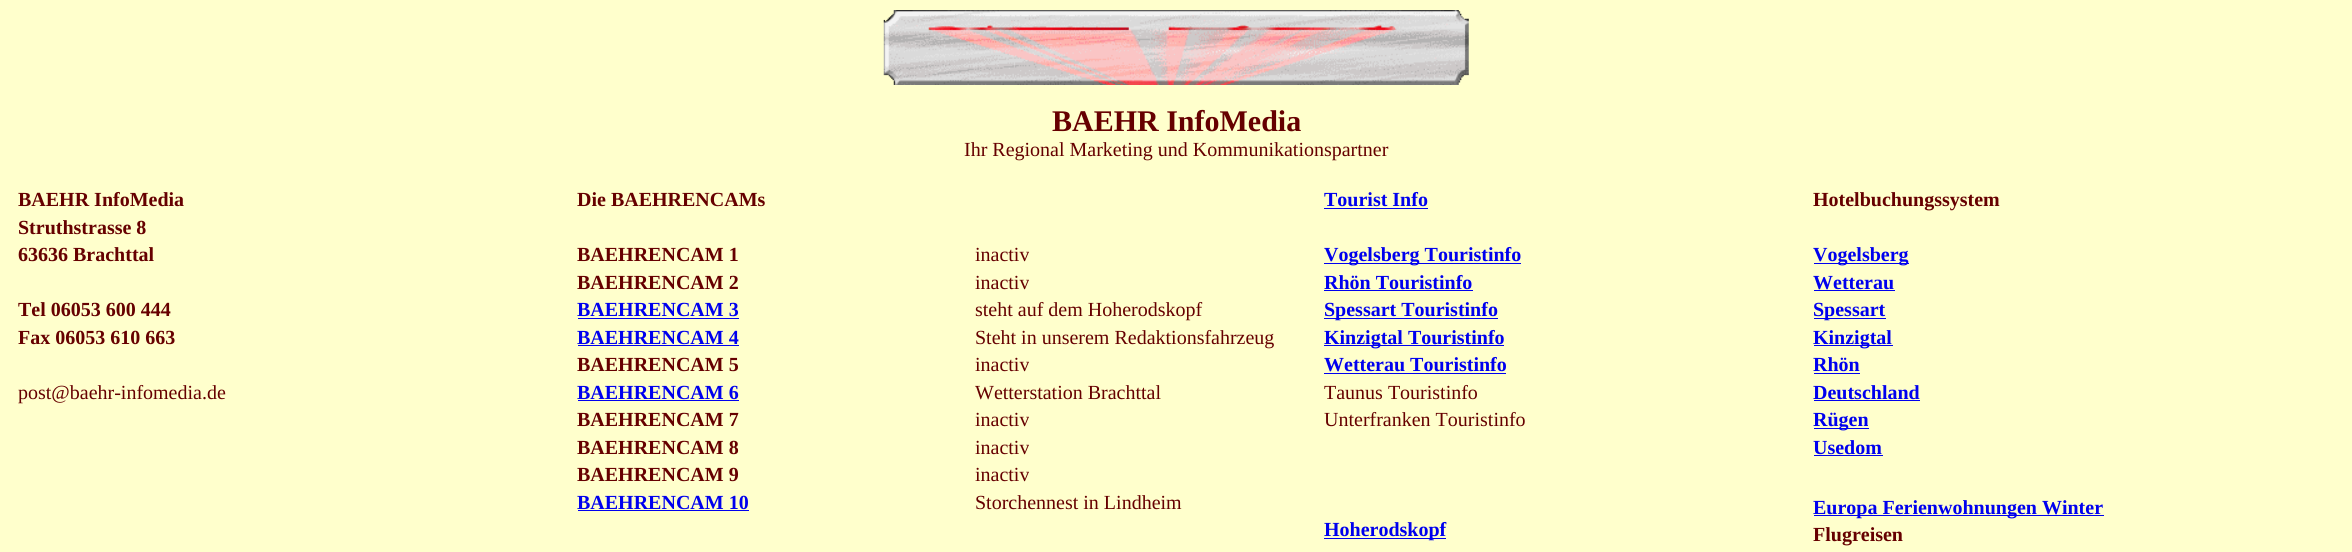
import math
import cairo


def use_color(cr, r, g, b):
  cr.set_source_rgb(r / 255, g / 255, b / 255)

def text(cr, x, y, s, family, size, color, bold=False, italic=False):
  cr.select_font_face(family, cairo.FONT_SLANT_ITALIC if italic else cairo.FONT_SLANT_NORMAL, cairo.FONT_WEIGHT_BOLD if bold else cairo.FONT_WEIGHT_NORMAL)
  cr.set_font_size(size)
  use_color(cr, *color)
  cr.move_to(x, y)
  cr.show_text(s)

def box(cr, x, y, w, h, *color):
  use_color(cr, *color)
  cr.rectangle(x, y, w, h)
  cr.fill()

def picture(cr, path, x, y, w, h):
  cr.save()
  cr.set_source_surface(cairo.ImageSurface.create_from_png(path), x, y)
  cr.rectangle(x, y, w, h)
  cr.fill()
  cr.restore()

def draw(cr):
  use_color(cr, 255, 255, 204)
  cr.paint()
  picture(cr, "img_01.png", 883, 10, 586, 75)
  box(cr, 578, 318, 161, 1, 0, 0, 238)
  box(cr, 578, 345, 161, 1, 0, 0, 238)
  box(cr, 578, 400, 161, 1, 0, 0, 238)
  box(cr, 578, 510, 171, 1, 0, 0, 238)
  box(cr, 1324, 208, 104, 1, 0, 0, 238)
  box(cr, 1324, 263, 197, 1, 0, 0, 238)
  box(cr, 1324, 290, 149, 1, 0, 0, 238)
  box(cr, 1324, 318, 174, 1, 0, 0, 238)
  box(cr, 1324, 345, 180, 1, 0, 0, 238)
  box(cr, 1324, 373, 182, 1, 0, 0, 238)
  box(cr, 1324, 538, 122, 1, 0, 0, 238)
  box(cr, 1814, 263, 95, 1, 0, 0, 238)
  box(cr, 1814, 290, 81, 1, 0, 0, 238)
  box(cr, 1814, 318, 72, 1, 0, 0, 238)
  box(cr, 1814, 345, 79, 1, 0, 0, 238)
  box(cr, 1814, 373, 46, 1, 0, 0, 238)
  box(cr, 1814, 400, 106, 1, 0, 0, 238)
  box(cr, 1814, 428, 55, 1, 0, 0, 238)
  box(cr, 1814, 455, 69, 1, 0, 0, 238)
  box(cr, 1814, 515, 290, 1, 0, 0, 238)
  text(cr, 1052, 131, "BAEHR InfoMedia", "Liberation Serif", 30, (102, 0, 0), bold=True)
  text(cr, 964, 156, "Ihr Regional Marketing und Kommunikationspartner", "Liberation Serif", 20, (102, 0, 0))
  text(cr, 18, 206, "BAEHR InfoMedia", "Liberation Serif", 20, (102, 0, 0), bold=True)
  text(cr, 18, 234, "Struthstrasse 8", "Liberation Serif", 20, (102, 0, 0), bold=True)
  text(cr, 18, 261, "63636 Brachttal", "Liberation Serif", 20, (102, 0, 0), bold=True)
  text(cr, 18, 316, "Tel 06053 600 444", "Liberation Serif", 20, (102, 0, 0), bold=True)
  text(cr, 18, 344, "Fax 06053 610 663", "Liberation Serif", 20, (102, 0, 0), bold=True)
  text(cr, 18, 399, "post@baehr-infomedia.de", "Liberation Serif", 20, (102, 0, 0))
  text(cr, 577, 206, "Die BAEHRENCAMs", "Liberation Serif", 20, (102, 0, 0), bold=True)
  text(cr, 577, 261, "BAEHRENCAM 1", "Liberation Serif", 20, (102, 0, 0), bold=True)
  text(cr, 975, 261, "inactiv", "Liberation Serif", 20, (102, 0, 0))
  text(cr, 577, 289, "BAEHRENCAM 2", "Liberation Serif", 20, (102, 0, 0), bold=True)
  text(cr, 975, 289, "inactiv", "Liberation Serif", 20, (102, 0, 0))
  text(cr, 577, 316, "BAEHRENCAM 3", "Liberation Serif", 20, (0, 0, 238), bold=True)
  text(cr, 975, 316, "steht auf dem Hoherodskopf", "Liberation Serif", 20, (102, 0, 0))
  text(cr, 577, 344, "BAEHRENCAM 4", "Liberation Serif", 20, (0, 0, 238), bold=True)
  text(cr, 975, 344, "Steht in unserem Redaktionsfahrzeug", "Liberation Serif", 20, (102, 0, 0))
  text(cr, 577, 371, "BAEHRENCAM 5", "Liberation Serif", 20, (102, 0, 0), bold=True)
  text(cr, 975, 371, "inactiv", "Liberation Serif", 20, (102, 0, 0))
  text(cr, 577, 399, "BAEHRENCAM 6", "Liberation Serif", 20, (0, 0, 238), bold=True)
  text(cr, 975, 399, "Wetterstation Brachttal", "Liberation Serif", 20, (102, 0, 0))
  text(cr, 577, 426, "BAEHRENCAM 7", "Liberation Serif", 20, (102, 0, 0), bold=True)
  text(cr, 975, 426, "inactiv", "Liberation Serif", 20, (102, 0, 0))
  text(cr, 577, 454, "BAEHRENCAM 8", "Liberation Serif", 20, (102, 0, 0), bold=True)
  text(cr, 975, 454, "inactiv", "Liberation Serif", 20, (102, 0, 0))
  text(cr, 577, 481, "BAEHRENCAM 9", "Liberation Serif", 20, (102, 0, 0), bold=True)
  text(cr, 975, 481, "inactiv", "Liberation Serif", 20, (102, 0, 0))
  text(cr, 577, 509, "BAEHRENCAM 10", "Liberation Serif", 20, (0, 0, 238), bold=True)
  text(cr, 975, 509, "Storchennest in Lindheim", "Liberation Serif", 20, (102, 0, 0))
  text(cr, 1324, 206, "Tourist Info", "Liberation Serif", 20, (0, 0, 238), bold=True)
  text(cr, 1324, 261, "Vogelsberg Touristinfo", "Liberation Serif", 20, (0, 0, 238), bold=True)
  text(cr, 1324, 289, "Rhön Touristinfo", "Liberation Serif", 20, (0, 0, 238), bold=True)
  text(cr, 1324, 316, "Spessart Touristinfo", "Liberation Serif", 20, (0, 0, 238), bold=True)
  text(cr, 1324, 344, "Kinzigtal Touristinfo", "Liberation Serif", 20, (0, 0, 238), bold=True)
  text(cr, 1324, 371, "Wetterau Touristinfo", "Liberation Serif", 20, (0, 0, 238), bold=True)
  text(cr, 1324, 399, "Taunus Touristinfo", "Liberation Serif", 20, (102, 0, 0))
  text(cr, 1324, 426, "Unterfranken Touristinfo", "Liberation Serif", 20, (102, 0, 0))
  text(cr, 1324, 536, "Hoherodskopf", "Liberation Serif", 20, (0, 0, 238), bold=True)
  text(cr, 1813, 206, "Hotelbuchungssystem", "Liberation Serif", 20, (102, 0, 0), bold=True)
  text(cr, 1813, 261, "Vogelsberg", "Liberation Serif", 20, (0, 0, 238), bold=True)
  text(cr, 1813, 289, "Wetterau", "Liberation Serif", 20, (0, 0, 238), bold=True)
  text(cr, 1813, 316, "Spessart", "Liberation Serif", 20, (0, 0, 238), bold=True)
  text(cr, 1813, 344, "Kinzigtal", "Liberation Serif", 20, (0, 0, 238), bold=True)
  text(cr, 1813, 371, "Rhön", "Liberation Serif", 20, (0, 0, 238), bold=True)
  text(cr, 1813, 399, "Deutschland", "Liberation Serif", 20, (0, 0, 238), bold=True)
  text(cr, 1813, 426, "Rügen", "Liberation Serif", 20, (0, 0, 238), bold=True)
  text(cr, 1813, 454, "Usedom", "Liberation Serif", 20, (0, 0, 238), bold=True)
  text(cr, 1813, 514, "Europa Ferienwohnungen Winter", "Liberation Serif", 20, (0, 0, 238), bold=True)
  text(cr, 1813, 541, "Flugreisen", "Liberation Serif", 20, (102, 0, 0), bold=True)


surface = cairo.ImageSurface(cairo.FORMAT_RGB24, 2352, 552)
cr = cairo.Context(surface)
options = cairo.FontOptions()
options.set_hint_metrics(cairo.HINT_METRICS_OFF)
options.set_hint_style(cairo.HINT_STYLE_NONE)
cr.set_font_options(options)
cr.set_miter_limit(4)
draw(cr)
surface.write_to_png("out.png")
